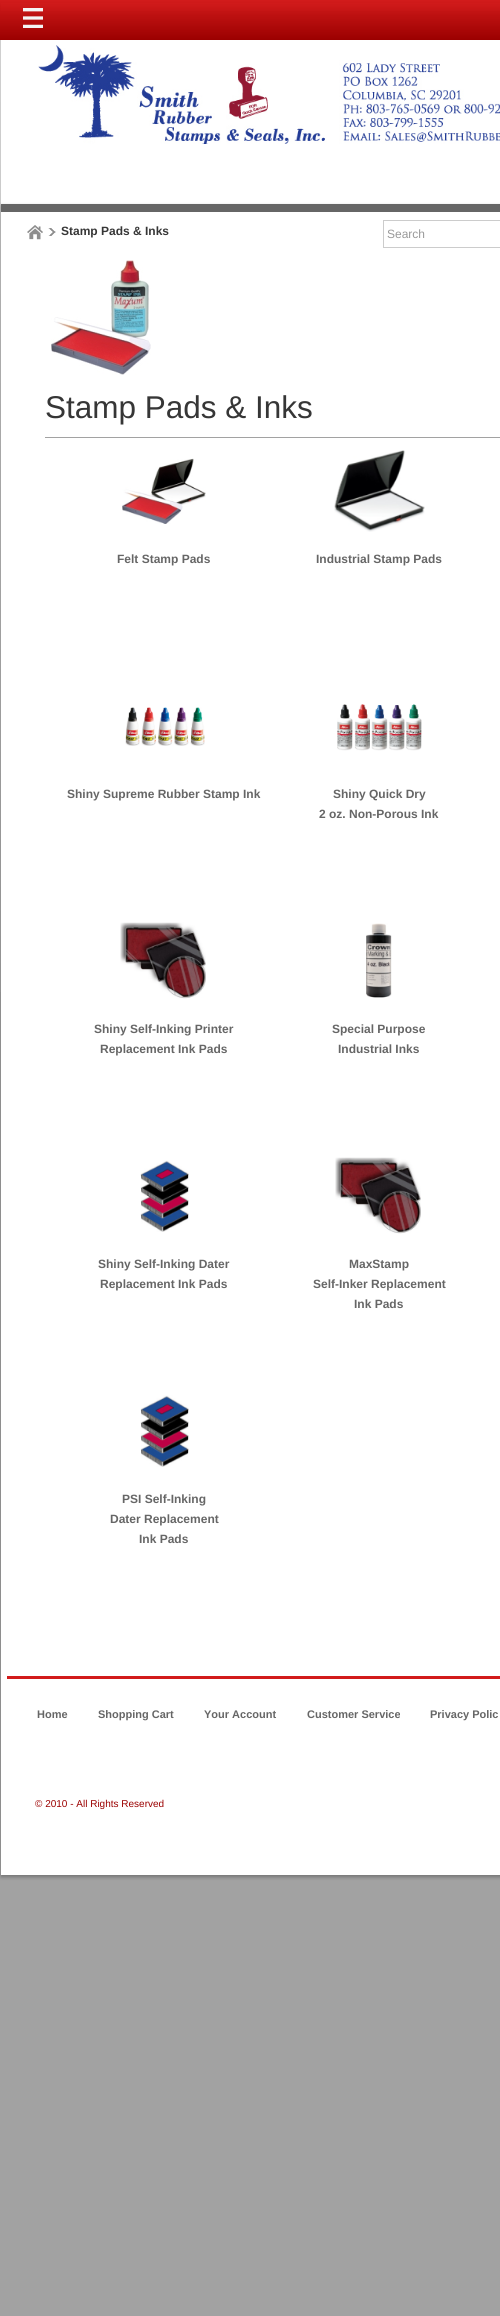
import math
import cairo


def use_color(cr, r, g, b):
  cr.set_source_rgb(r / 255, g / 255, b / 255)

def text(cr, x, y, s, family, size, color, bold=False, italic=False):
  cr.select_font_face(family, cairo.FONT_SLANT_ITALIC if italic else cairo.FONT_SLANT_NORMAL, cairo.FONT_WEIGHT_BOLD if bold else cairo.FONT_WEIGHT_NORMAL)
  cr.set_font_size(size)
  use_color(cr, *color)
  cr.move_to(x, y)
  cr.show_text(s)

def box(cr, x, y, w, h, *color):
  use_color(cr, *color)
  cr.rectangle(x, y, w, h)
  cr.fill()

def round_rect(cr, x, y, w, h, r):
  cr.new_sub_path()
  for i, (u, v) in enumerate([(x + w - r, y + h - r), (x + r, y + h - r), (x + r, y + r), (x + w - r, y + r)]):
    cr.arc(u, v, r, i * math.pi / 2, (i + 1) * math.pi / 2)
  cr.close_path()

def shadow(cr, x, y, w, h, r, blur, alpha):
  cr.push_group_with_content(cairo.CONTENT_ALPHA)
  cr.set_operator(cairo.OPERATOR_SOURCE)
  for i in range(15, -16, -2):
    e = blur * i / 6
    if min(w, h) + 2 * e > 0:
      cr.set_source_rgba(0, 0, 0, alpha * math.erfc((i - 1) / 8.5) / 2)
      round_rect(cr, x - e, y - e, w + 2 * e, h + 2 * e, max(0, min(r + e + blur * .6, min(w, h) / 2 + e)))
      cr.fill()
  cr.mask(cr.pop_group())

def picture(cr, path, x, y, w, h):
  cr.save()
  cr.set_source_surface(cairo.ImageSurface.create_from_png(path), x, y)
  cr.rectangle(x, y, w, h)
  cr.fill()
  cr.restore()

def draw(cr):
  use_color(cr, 162, 162, 162)
  cr.paint()
  picture(cr, "img_01.png", 0, 0, 500, 992)
  box(cr, 1, 40, 499, 1835, 255, 255, 255)
  gradient = cairo.LinearGradient(301, 2, 301, 40)
  gradient.add_color_stop_rgba(0, 0.824, 0.106, 0.106, 1)
  gradient.add_color_stop_rgba(1, 0.608, 0, 0, 1)
  cr.set_source(gradient)
  cr.rectangle(1, 3, 499, 8)
  cr.fill()
  picture(cr, "img_02.png", 23, 8, 20, 20)
  picture(cr, "img_03.png", 38, 45, 462, 99)
  cr.save()
  cr.set_fill_rule(cairo.FILL_RULE_EVEN_ODD)
  cr.new_path()
  cr.move_to(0, 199)
  cr.line_to(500, 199)
  cr.line_to(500, 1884)
  cr.line_to(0, 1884)
  cr.close_path()
  cr.move_to(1, 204)
  cr.line_to(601, 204)
  cr.line_to(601, 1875)
  cr.line_to(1, 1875)
  cr.close_path()
  cr.clip()
  use_color(cr, 0, 0, 0)
  shadow(cr, 1, 206, 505, 1671, 0, 2, 0.3)
  cr.restore()
  box(cr, 1, 204, 499, 8, 102, 102, 102)
  picture(cr, "img_04.png", 27, 225, 16, 15)
  picture(cr, "img_05.png", 48, 228, 8, 8)
  cr.rectangle(383.5, 220.5, 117, 27)
  use_color(cr, 204, 204, 204)
  cr.set_line_width(1)
  cr.stroke()
  picture(cr, "img_06.png", 51, 260, 100, 115)
  box(cr, 45, 437, 455, 1, 162, 162, 162)
  picture(cr, "img_07.png", 122, 458, 84, 66)
  picture(cr, "img_08.png", 334, 450, 91, 82)
  picture(cr, "img_09.png", 125, 707, 80, 39)
  picture(cr, "img_10.png", 337, 704, 85, 47)
  picture(cr, "img_11.png", 120, 922, 86, 77)
  picture(cr, "img_12.png", 366, 923, 26, 75)
  picture(cr, "img_13.png", 140, 1160, 49, 72)
  picture(cr, "img_14.png", 335, 1157, 86, 77)
  picture(cr, "img_15.png", 140, 1395, 49, 72)
  box(cr, 7, 1676, 493, 3, 210, 27, 27)
  text(cr, 61, 235, "Stamp Pads & Inks", "Liberation Sans", 12, (54, 54, 54), bold=True)
  text(cr, 387, 238, "Search", "Liberation Sans", 12, (153, 153, 153))
  text(cr, 45, 418, "Stamp Pads & Inks", "Liberation Sans", 31.5, (54, 54, 54))
  text(cr, 117, 563, "Felt Stamp Pads", "Liberation Sans", 12, (102, 102, 102), bold=True)
  text(cr, 316, 563, "Industrial Stamp Pads", "Liberation Sans", 12, (102, 102, 102), bold=True)
  text(cr, 67, 798, "Shiny Supreme Rubber Stamp Ink", "Liberation Sans", 12, (102, 102, 102), bold=True)
  text(cr, 333, 798, "Shiny Quick Dry", "Liberation Sans", 12, (102, 102, 102), bold=True)
  text(cr, 319, 818, "2 oz. Non-Porous Ink", "Liberation Sans", 12, (102, 102, 102), bold=True)
  text(cr, 94, 1033, "Shiny Self-Inking Printer", "Liberation Sans", 12, (102, 102, 102), bold=True)
  text(cr, 100, 1053, "Replacement Ink Pads", "Liberation Sans", 12, (102, 102, 102), bold=True)
  text(cr, 332, 1033, "Special Purpose", "Liberation Sans", 12, (102, 102, 102), bold=True)
  text(cr, 338, 1053, "Industrial Inks", "Liberation Sans", 12, (102, 102, 102), bold=True)
  text(cr, 98, 1268, "Shiny Self-Inking Dater", "Liberation Sans", 12, (102, 102, 102), bold=True)
  text(cr, 100, 1288, "Replacement Ink Pads", "Liberation Sans", 12, (102, 102, 102), bold=True)
  text(cr, 349, 1268, "MaxStamp", "Liberation Sans", 12, (102, 102, 102), bold=True)
  text(cr, 313, 1288, "Self-Inker Replacement", "Liberation Sans", 12, (102, 102, 102), bold=True)
  text(cr, 354, 1308, "Ink Pads", "Liberation Sans", 12, (102, 102, 102), bold=True)
  text(cr, 122, 1503, "PSI Self-Inking", "Liberation Sans", 12, (102, 102, 102), bold=True)
  text(cr, 110, 1523, "Dater Replacement", "Liberation Sans", 12, (102, 102, 102), bold=True)
  text(cr, 139, 1543, "Ink Pads", "Liberation Sans", 12, (102, 102, 102), bold=True)
  text(cr, 37, 1718, "Home", "Liberation Sans", 11, (102, 102, 102), bold=True)
  text(cr, 98, 1718, "Shopping Cart", "Liberation Sans", 11, (102, 102, 102), bold=True)
  text(cr, 204, 1718, "Your Account", "Liberation Sans", 11, (102, 102, 102), bold=True)
  text(cr, 307, 1718, "Customer Service", "Liberation Sans", 11, (102, 102, 102), bold=True)
  text(cr, 430, 1718, "Privacy Polic", "Liberation Sans", 11, (102, 102, 102), bold=True)
  text(cr, 35, 1807, "© 2010 - All Rights Reserved", "Liberation Sans", 10, (155, 0, 0))


surface = cairo.ImageSurface(cairo.FORMAT_RGB24, 500, 2316)
cr = cairo.Context(surface)
options = cairo.FontOptions()
options.set_hint_metrics(cairo.HINT_METRICS_OFF)
options.set_hint_style(cairo.HINT_STYLE_NONE)
cr.set_font_options(options)
cr.set_miter_limit(4)
draw(cr)
surface.write_to_png("out.png")
